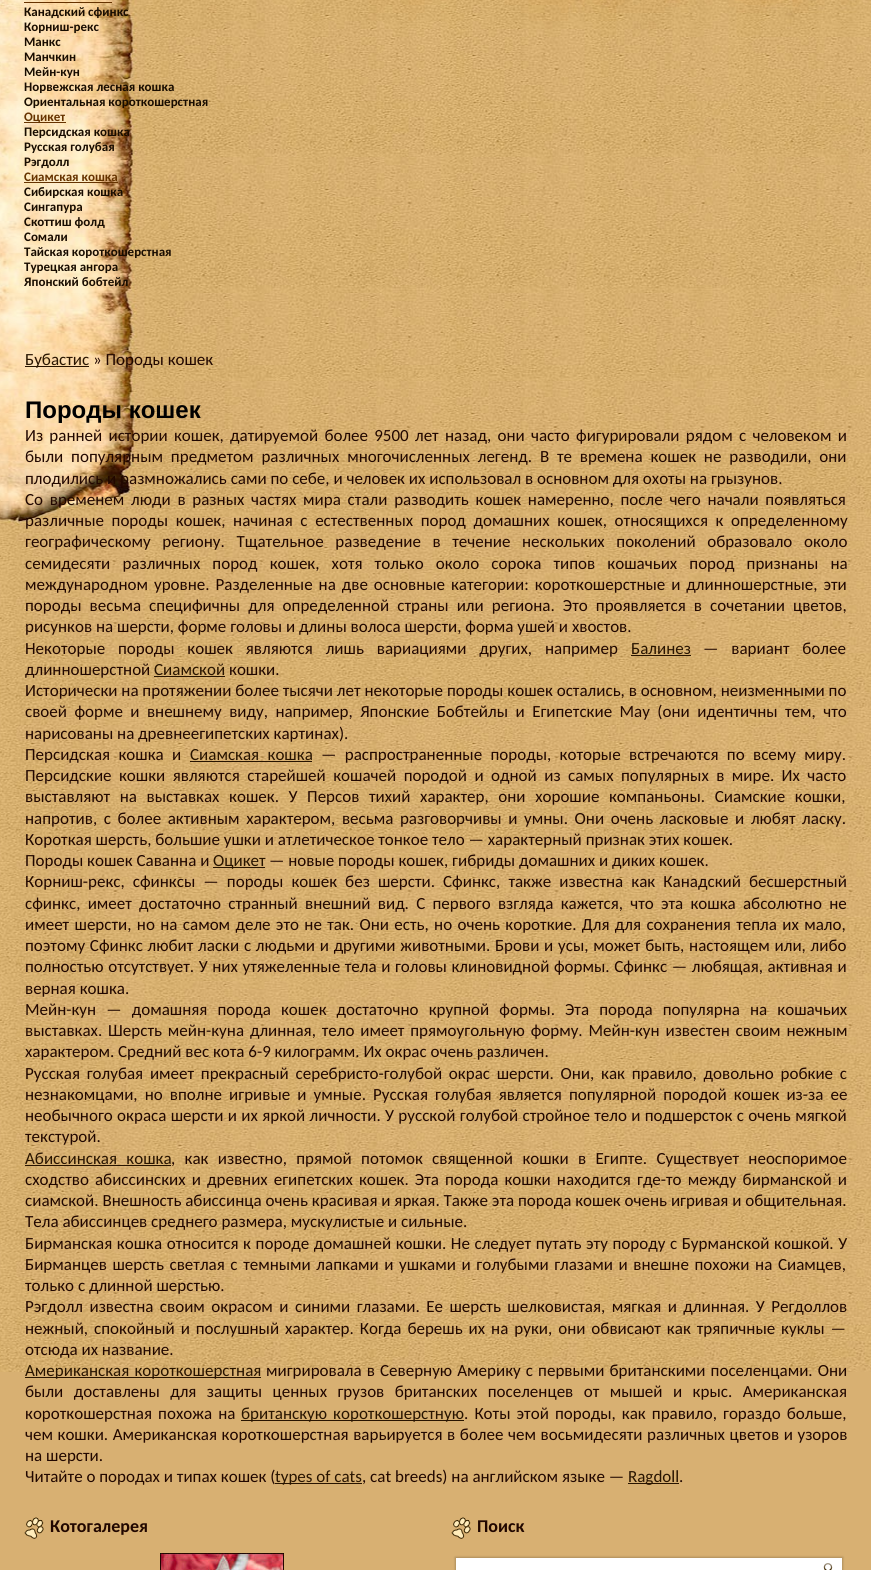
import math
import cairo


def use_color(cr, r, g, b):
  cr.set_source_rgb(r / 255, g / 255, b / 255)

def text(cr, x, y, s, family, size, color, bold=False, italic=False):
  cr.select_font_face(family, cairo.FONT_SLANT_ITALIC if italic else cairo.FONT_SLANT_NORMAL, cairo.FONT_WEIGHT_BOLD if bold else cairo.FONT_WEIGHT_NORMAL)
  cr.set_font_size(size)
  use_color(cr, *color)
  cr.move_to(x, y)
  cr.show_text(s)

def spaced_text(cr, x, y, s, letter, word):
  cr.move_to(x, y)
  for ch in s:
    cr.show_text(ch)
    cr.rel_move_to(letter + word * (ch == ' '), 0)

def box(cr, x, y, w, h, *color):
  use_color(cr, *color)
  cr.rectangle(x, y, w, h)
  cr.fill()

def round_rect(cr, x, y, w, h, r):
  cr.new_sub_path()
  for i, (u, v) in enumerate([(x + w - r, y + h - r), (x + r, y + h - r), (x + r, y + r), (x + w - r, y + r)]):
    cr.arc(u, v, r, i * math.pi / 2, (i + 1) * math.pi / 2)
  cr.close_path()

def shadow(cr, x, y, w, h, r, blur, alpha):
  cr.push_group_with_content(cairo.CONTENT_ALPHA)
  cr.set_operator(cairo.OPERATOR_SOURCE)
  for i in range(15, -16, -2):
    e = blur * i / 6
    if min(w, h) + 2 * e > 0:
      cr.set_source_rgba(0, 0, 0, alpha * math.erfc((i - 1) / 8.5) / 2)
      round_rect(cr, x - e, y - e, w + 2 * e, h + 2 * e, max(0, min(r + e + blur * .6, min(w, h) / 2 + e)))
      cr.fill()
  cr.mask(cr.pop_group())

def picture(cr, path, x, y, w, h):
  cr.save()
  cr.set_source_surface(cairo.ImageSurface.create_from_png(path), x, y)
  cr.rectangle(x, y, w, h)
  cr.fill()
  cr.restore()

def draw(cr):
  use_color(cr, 216, 176, 114)
  cr.paint()
  picture(cr, "img_01.png", 0, 0, 871, 1372)
  box(cr, 24, 2, 88, 1, 102, 51, 0)
  box(cr, 24, 122, 42, 1, 102, 51, 0)
  box(cr, 24, 182, 94, 1, 102, 51, 0)
  box(cr, 25, 366, 64, 1, 40, 20, 0)
  box(cr, 631, 655, 60, 1, 40, 20, 0)
  box(cr, 154, 676, 71, 1, 40, 20, 0)
  box(cr, 190, 761, 122, 1, 40, 20, 0)
  box(cr, 213, 867, 52, 1, 40, 20, 0)
  box(cr, 25, 1165, 146, 1, 40, 20, 0)
  box(cr, 25, 1377, 236, 1, 40, 20, 0)
  box(cr, 241, 1420, 223, 1, 40, 20, 0)
  box(cr, 275, 1483, 87, 1, 40, 20, 0)
  box(cr, 628, 1483, 51, 1, 40, 20, 0)
  picture(cr, "img_02.png", 24, 1517, 20, 22)
  picture(cr, "img_03.png", 160, 1553, 124, 17)
  picture(cr, "img_02.png", 451, 1517, 20, 22)
  use_color(cr, 0, 0, 0)
  shadow(cr, 455, 1557, 388, 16, 0, 1, 0.2)
  box(cr, 456, 1558, 386, 12, 255, 255, 255)
  picture(cr, "img_04.png", 823, 1563, 10, 7)
  text(cr, 24, 16, "Канадский сфинкс", "Carlito", 13, (24, 12, 0), bold=True)
  text(cr, 24, 31, "Корниш-рекс", "Carlito", 13, (24, 12, 0), bold=True)
  text(cr, 24, 46, "Манкс", "Carlito", 13, (24, 12, 0), bold=True)
  text(cr, 24, 61, "Манчкин", "Carlito", 13, (24, 12, 0), bold=True)
  text(cr, 24, 76, "Мейн-кун", "Carlito", 13, (24, 12, 0), bold=True)
  text(cr, 24, 91, "Норвежская лесная кошка", "Carlito", 13, (24, 12, 0), bold=True)
  text(cr, 24, 106, "Ориентальная короткошерстная", "Carlito", 13, (24, 12, 0), bold=True)
  text(cr, 24, 121, "Оцикет", "Carlito", 13, (102, 51, 0), bold=True)
  text(cr, 24, 136, "Персидская кошка", "Carlito", 13, (24, 12, 0), bold=True)
  text(cr, 24, 151, "Русская голубая", "Carlito", 13, (24, 12, 0), bold=True)
  text(cr, 24, 166, "Рэгдолл", "Carlito", 13, (24, 12, 0), bold=True)
  text(cr, 24, 181, "Сиамская кошка", "Carlito", 13, (102, 51, 0), bold=True)
  text(cr, 24, 196, "Сибирская кошка", "Carlito", 13, (24, 12, 0), bold=True)
  text(cr, 24, 211, "Сингапура", "Carlito", 13, (24, 12, 0), bold=True)
  text(cr, 24, 226, "Скоттиш фолд", "Carlito", 13, (24, 12, 0), bold=True)
  text(cr, 24, 241, "Сомали", "Carlito", 13, (24, 12, 0), bold=True)
  text(cr, 24, 256, "Тайская короткошерстная", "Carlito", 13, (24, 12, 0), bold=True)
  text(cr, 24, 271, "Турецкая ангора", "Carlito", 13, (24, 12, 0), bold=True)
  text(cr, 24, 286, "Японский бобтейл", "Carlito", 13, (24, 12, 0), bold=True)
  text(cr, 25, 365, "Бубастис", "Carlito", 17, (40, 20, 0))
  text(cr, 93, 365, "» Породы кошек", "Carlito", 17, (33, 7, 0))
  text(cr, 25, 418, "Породы кошек", "Liberation Sans", 24, (0, 0, 0), bold=True)
  cr.select_font_face("Carlito")
  cr.set_font_size(17)
  use_color(cr, 33, 7, 0)
  spaced_text(cr, 25, 441, "Из ранней истории кошек, датируемой более 9500 лет назад, они часто фигурировали рядом с человеком и", 0, 2.4)
  spaced_text(cr, 25, 462, "были популярным предметом различных многочисленных легенд. В те времена кошек не разводили, они", 0, 4)
  text(cr, 25, 484, "плодились и размножались сами по себе, и человек их использовал в основном для охоты на грызунов.", "Carlito", 17, (33, 7, 0))
  spaced_text(cr, 25, 505, "Со временем люди в разных частях мира стали разводить кошек намеренно, после чего начали появляться", 0, 2.9)
  spaced_text(cr, 25, 526, "различные породы кошек, начиная с естественных пород домашних кошек, относящихся к определенному", 0, 3.75)
  spaced_text(cr, 25, 547, "географическому региону. Тщательное разведение в течение нескольких поколений образовало около", 0, 7.75)
  spaced_text(cr, 25, 569, "семидесяти различных пород кошек, хотя только около сорока типов кошачьих пород признаны на", 0, 8.25)
  spaced_text(cr, 25, 590, "международном уровне. Разделенные на две основные категории: короткошерстные и длинношерстные, эти", 0, 2.1)
  spaced_text(cr, 25, 611, "породы весьма специфичны для определенной страны или региона. Это проявляется в сочетании цветов,", 0, 4.25)
  text(cr, 25, 632, "рисунков на шерсти, форме головы и длины волоса шерсти, форма ушей и хвостов.", "Carlito", 17, (33, 7, 0))
  spaced_text(cr, 25, 654, "Некоторые породы кошек являются лишь вариациями других, например", 0, 9)
  text(cr, 631, 654, "Балинез", "Carlito", 17, (40, 20, 0))
  use_color(cr, 33, 7, 0)
  spaced_text(cr, 703, 654, "— вариант более", 0, 9)
  text(cr, 25, 675, "длинношерстной", "Carlito", 17, (33, 7, 0))
  text(cr, 154, 675, "Сиамской", "Carlito", 17, (40, 20, 0))
  text(cr, 229, 675, "кошки.", "Carlito", 17, (33, 7, 0))
  text(cr, 25, 696, "Исторически на протяжении более тысячи лет некоторые породы кошек остались, в основном, неизменными по", "Carlito", 17, (33, 7, 0))
  spaced_text(cr, 25, 717, "своей форме и внешнему виду, например, Японские Бобтейлы и Египетские Мау (они идентичны тем, что", 0, 3.6)
  text(cr, 25, 739, "нарисованы на древнеегипетских картинах).", "Carlito", 17, (33, 7, 0))
  spaced_text(cr, 25, 760, "Персидская кошка и", 0, 4.5)
  use_color(cr, 40, 20, 0)
  spaced_text(cr, 190, 760, "Сиамская кошка", 0, 4.5)
  use_color(cr, 33, 7, 0)
  spaced_text(cr, 321, 760, "— распространенные породы, которые встречаются по всему миру.", 0, 4.5)
  spaced_text(cr, 25, 781, "Персидские кошки являются старейшей кошачей породой и одной из самых популярных в мире. Их часто", 0, 3.6)
  spaced_text(cr, 25, 802, "выставляют на выставках кошек. У Персов тихий характер, они хорошие компаньоны. Сиамские кошки,", 0, 5.75)
  spaced_text(cr, 25, 824, "напротив, с более активным характером, весьма разговорчивы и умны. Они очень ласковые и любят ласку.", 0, 2.75)
  text(cr, 25, 845, "Короткая шерсть, большие ушки и атлетическое тонкое тело — характерный признак этих кошек.", "Carlito", 17, (33, 7, 0))
  text(cr, 25, 866, "Породы кошек Саванна и", "Carlito", 17, (33, 7, 0))
  text(cr, 213, 866, "Оцикет", "Carlito", 17, (40, 20, 0))
  text(cr, 269, 866, "— новые породы кошек, гибриды домашних и диких кошек.", "Carlito", 17, (33, 7, 0))
  spaced_text(cr, 25, 887, "Корниш-рекс, сфинксы — породы кошек без шерсти. Сфинкс, также известна как Канадский бесшерстный", 0, 4.25)
  spaced_text(cr, 25, 909, "сфинкс, имеет достаточно странный внешний вид. С первого взгляда кажется, что эта кошка абсолютно не", 0, 3.4)
  spaced_text(cr, 25, 930, "имеет шерсти, но на самом деле это не так. Они есть, но очень короткие. Для для сохранения тепла их мало,", 0, 1.5)
  spaced_text(cr, 25, 951, "поэтому Сфинкс любит ласки с людьми и другими животными. Брови и усы, может быть, настоящем или, либо", 0, 0.9)
  spaced_text(cr, 25, 972, "полностью отсутствует. У них утяжеленные тела и головы клиновидной формы. Сфинкс — любящая, активная и", 0, 0.75)
  text(cr, 25, 994, "верная кошка.", "Carlito", 17, (33, 7, 0))
  spaced_text(cr, 25, 1015, "Мейн-кун — домашняя порода кошек достаточно крупной формы. Эта порода популярна на кошачьих", 0, 6.25)
  spaced_text(cr, 25, 1036, "выставках. Шерсть мейн-куна длинная, тело имеет прямоугольную форму. Мейн-кун известен своим нежным", 0, 2)
  text(cr, 25, 1057, "характером. Средний вес кота 6-9 килограмм. Их окрас очень различен.", "Carlito", 17, (33, 7, 0))
  spaced_text(cr, 25, 1079, "Русская голубая имеет прекрасный серебристо-голубой окрас шерсти. Они, как правило, довольно робкие с", 0, 2.9)
  spaced_text(cr, 25, 1100, "незнакомцами, но вполне игривые и умные. Русская голубая является популярной породой кошек из-за ее", 0, 3.25)
  spaced_text(cr, 25, 1121, "необычного окраса шерсти и их яркой личности. У русской голубой стройное тело и подшерсток с очень мягкой", 0, 0.5)
  text(cr, 25, 1142, "текстурой.", "Carlito", 17, (33, 7, 0))
  use_color(cr, 40, 20, 0)
  spaced_text(cr, 25, 1164, "Абиссинская кошка", 0, 5.5)
  use_color(cr, 33, 7, 0)
  spaced_text(cr, 171, 1164, ", как известно, прямой потомок священной кошки в Египте. Существует неоспоримое", 0, 5.5)
  spaced_text(cr, 25, 1185, "сходство абиссинских и древних египетских кошек. Эта порода кошки находится где-то между бирманской и", 0, 2.25)
  text(cr, 25, 1206, "сиамской. Внешность абиссинца очень красивая и яркая. Также эта порода кошек очень игривая и общительная.", "Carlito", 17, (33, 7, 0))
  text(cr, 25, 1227, "Тела абиссинцев среднего размера, мускулистые и сильные.", "Carlito", 17, (33, 7, 0))
  spaced_text(cr, 25, 1249, "Бирманская кошка относится к породе домашней кошки. Не следует путать эту породу с Бурманской кошкой. У", 0, 0.75)
  spaced_text(cr, 25, 1270, "Бирманцев шерсть светлая с темными лапками и ушками и голубыми глазами и внешне похожи на Сиамцев,", 0, 1.75)
  text(cr, 25, 1291, "только с длинной шерстью.", "Carlito", 17, (33, 7, 0))
  spaced_text(cr, 25, 1312, "Рэгдолл известна своим окрасом и синими глазами. Ее шерсть шелковистая, мягкая и длинная. У Регдоллов", 0, 2.6)
  spaced_text(cr, 25, 1334, "нежный, спокойный и послушный характер. Когда берешь их на руки, они обвисают как тряпичные куклы —", 0, 2.1)
  text(cr, 25, 1355, "отсюда их название.", "Carlito", 17, (33, 7, 0))
  use_color(cr, 40, 20, 0)
  spaced_text(cr, 25, 1376, "Американская короткошерстная", 0, 1.25)
  use_color(cr, 33, 7, 0)
  spaced_text(cr, 266, 1376, "мигрировала в Северную Америку с первыми британскими поселенцами. Они", 0, 1.25)
  spaced_text(cr, 25, 1397, "были доставлены для защиты ценных грузов британских поселенцев от мышей и крыс. Американская", 0, 6.6)
  spaced_text(cr, 25, 1419, "короткошерстная похожа на", 0, 2.25)
  use_color(cr, 40, 20, 0)
  spaced_text(cr, 241, 1419, "британскую короткошерстную", 0, 2.25)
  use_color(cr, 33, 7, 0)
  spaced_text(cr, 464, 1419, ". Коты этой породы, как правило, гораздо больше,", 0, 2.25)
  spaced_text(cr, 25, 1440, "чем кошки. Американская короткошерстная варьируется в более чем восьмидесяти различных цветов и узоров", 0, 0.75)
  text(cr, 25, 1461, "на шерсти.", "Carlito", 17, (33, 7, 0))
  text(cr, 25, 1482, "Читайте о породах и типах кошек (", "Carlito", 17, (33, 7, 0))
  text(cr, 275, 1482, "types of cats", "Carlito", 17, (40, 20, 0))
  text(cr, 362, 1482, ", cat breeds) на английском языке —", "Carlito", 17, (33, 7, 0))
  text(cr, 628, 1482, "Ragdoll", "Carlito", 17, (40, 20, 0))
  text(cr, 679, 1482, ".", "Carlito", 17, (33, 7, 0))
  text(cr, 50, 1532, "Котогалерея", "Carlito", 18, (33, 7, 0), bold=True)
  text(cr, 477, 1532, "Поиск", "Carlito", 18, (33, 7, 0), bold=True)


surface = cairo.ImageSurface(cairo.FORMAT_RGB24, 871, 1570)
cr = cairo.Context(surface)
options = cairo.FontOptions()
options.set_hint_metrics(cairo.HINT_METRICS_OFF)
options.set_hint_style(cairo.HINT_STYLE_NONE)
cr.set_font_options(options)
cr.set_miter_limit(4)
draw(cr)
surface.write_to_png("out.png")
